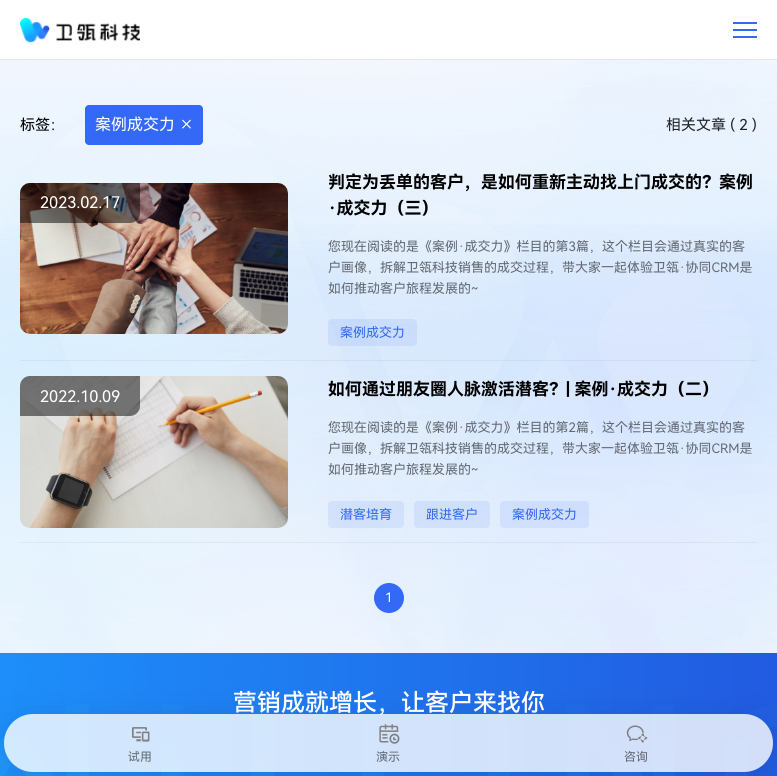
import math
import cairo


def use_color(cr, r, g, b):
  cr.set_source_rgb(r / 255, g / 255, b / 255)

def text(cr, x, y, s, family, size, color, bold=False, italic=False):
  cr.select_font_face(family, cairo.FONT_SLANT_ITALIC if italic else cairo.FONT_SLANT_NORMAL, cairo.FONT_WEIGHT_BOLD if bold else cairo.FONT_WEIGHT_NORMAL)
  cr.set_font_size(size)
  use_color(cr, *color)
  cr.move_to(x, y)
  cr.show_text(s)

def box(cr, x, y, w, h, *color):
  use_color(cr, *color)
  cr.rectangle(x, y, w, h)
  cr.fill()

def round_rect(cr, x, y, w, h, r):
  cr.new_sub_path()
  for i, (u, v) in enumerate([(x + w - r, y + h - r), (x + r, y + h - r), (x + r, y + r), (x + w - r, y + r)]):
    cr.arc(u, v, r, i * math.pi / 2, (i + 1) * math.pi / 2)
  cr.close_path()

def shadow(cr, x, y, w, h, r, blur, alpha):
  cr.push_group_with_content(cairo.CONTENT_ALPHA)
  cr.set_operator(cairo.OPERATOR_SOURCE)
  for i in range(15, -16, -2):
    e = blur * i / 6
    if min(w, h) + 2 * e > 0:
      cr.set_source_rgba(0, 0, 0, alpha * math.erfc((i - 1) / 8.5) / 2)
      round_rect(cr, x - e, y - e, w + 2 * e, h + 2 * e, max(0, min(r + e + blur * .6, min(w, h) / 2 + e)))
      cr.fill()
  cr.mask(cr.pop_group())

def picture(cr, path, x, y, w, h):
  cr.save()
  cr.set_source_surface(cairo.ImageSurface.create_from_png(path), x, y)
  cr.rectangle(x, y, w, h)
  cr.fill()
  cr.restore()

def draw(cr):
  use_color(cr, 255, 255, 255)
  cr.paint()
  picture(cr, "img_01.png", 20, 17, 120, 26)
  box(cr, 733, 22, 24, 2, 52, 104, 246)
  box(cr, 733, 29, 24, 2, 52, 104, 246)
  box(cr, 733, 36, 24, 2, 52, 104, 246)
  box(cr, 0, 59, 777, 1, 230, 230, 230)
  picture(cr, "img_02.png", 0, 60, 777, 593)
  use_color(cr, 52, 104, 246)
  round_rect(cr, 85, 105, 118, 40, 4)
  cr.fill()
  picture(cr, "img_03.png", 182, 119, 9, 10)
  picture(cr, "img_04.png", 20, 183, 268, 151)
  cr.set_source_rgba(0, 0, 0, 0.5)
  cr.new_path()
  cr.move_to(30, 183)
  cr.line_to(140, 183)
  cr.line_to(140, 213)
  cr.curve_to(140, 218.5, 135.5, 223, 130, 223)
  cr.line_to(20, 223)
  cr.line_to(20, 193)
  cr.curve_to(20, 187.5, 24.5, 183, 30, 183)
  cr.close_path()
  cr.fill()
  cr.set_source_rgba(0.204, 0.408, 0.965, 0.1)
  round_rect(cr, 328, 319, 89, 27, 4)
  cr.fill()
  cr.set_source_rgba(0, 0, 0, 0.05)
  cr.rectangle(20, 360, 737, 1)
  cr.fill()
  picture(cr, "img_05.png", 20, 376, 268, 152)
  cr.set_source_rgba(0, 0, 0, 0.5)
  cr.new_path()
  cr.move_to(30, 376)
  cr.line_to(140, 376)
  cr.line_to(140, 406)
  cr.curve_to(140, 411.5, 135.5, 416, 130, 416)
  cr.line_to(20, 416)
  cr.line_to(20, 386)
  cr.curve_to(20, 380.5, 24.5, 376, 30, 376)
  cr.close_path()
  cr.fill()
  cr.set_source_rgba(0.204, 0.408, 0.965, 0.1)
  round_rect(cr, 328, 501, 76, 27, 4)
  cr.fill()
  round_rect(cr, 414, 501, 76, 27, 4)
  cr.fill()
  round_rect(cr, 500, 501, 89, 27, 4)
  cr.fill()
  cr.set_source_rgba(0, 0, 0, 0.05)
  cr.rectangle(20, 542, 737, 1)
  cr.fill()
  cr.save()
  round_rect(cr, 374, 583, 30, 30, 15)
  cr.clip()
  use_color(cr, 52, 104, 246)
  round_rect(cr, 373, 582, 32, 32, 2)
  cr.fill()
  cr.restore()
  picture(cr, "img_06.png", 0, 653, 777, 123)
  cr.save()
  cr.set_fill_rule(cairo.FILL_RULE_EVEN_ODD)
  cr.new_path()
  cr.move_to(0, 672)
  cr.line_to(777, 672)
  cr.line_to(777, 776)
  cr.line_to(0, 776)
  cr.close_path()
  cr.move_to(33, 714)
  cr.line_to(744, 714)
  cr.curve_to(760, 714, 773, 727, 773, 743)
  cr.curve_to(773, 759, 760, 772, 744, 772)
  cr.line_to(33, 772)
  cr.curve_to(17, 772, 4, 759, 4, 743)
  cr.curve_to(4, 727, 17, 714, 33, 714)
  cr.close_path()
  cr.clip()
  use_color(cr, 0, 0, 0)
  shadow(cr, 4, 718, 769, 58, 29, 15, 0.1)
  cr.restore()
  text(cr, 20, 130, "标签：", "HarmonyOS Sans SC", 15, (0, 0, 0))
  text(cr, 95, 130, "案例成交力", "HarmonyOS Sans SC", 16, (255, 255, 255))
  text(cr, 666, 130, "相关文章 ( 2 )", "HarmonyOS Sans SC", 15, (35, 36, 38))
  text(cr, 40, 208, "2023.02.17", "HarmonyOS Sans SC", 16, (255, 255, 255))
  text(cr, 328, 188, "判定为丢单的客户，是如何重新主动找上门成交的？案例", "HarmonyOS Sans SC", 17, (0, 0, 0), bold=True)
  text(cr, 328, 214, "·成交力（三）", "HarmonyOS Sans SC", 17, (0, 0, 0), bold=True)
  text(cr, 328, 251, "您现在阅读的是《案例·成交力》栏目的第3篇，这个栏目会通过真实的客", "HarmonyOS Sans SC", 13, (100, 106, 115))
  text(cr, 328, 272, "户画像，拆解卫瓴科技销售的成交过程，带大家一起体验卫瓴·协同CRM是", "HarmonyOS Sans SC", 13, (100, 106, 115))
  text(cr, 328, 293, "如何推动客户旅程发展的~", "HarmonyOS Sans SC", 13, (100, 106, 115))
  text(cr, 340, 337, "案例成交力", "HarmonyOS Sans SC", 13, (52, 104, 246))
  text(cr, 40, 402, "2022.10.09", "HarmonyOS Sans SC", 16, (255, 255, 255))
  text(cr, 328, 395, "如何通过朋友圈人脉激活潜客？| 案例·成交力（二）", "HarmonyOS Sans SC", 17, (0, 0, 0), bold=True)
  text(cr, 328, 432, "您现在阅读的是《案例·成交力》栏目的第2篇，这个栏目会通过真实的客", "HarmonyOS Sans SC", 13, (100, 106, 115))
  text(cr, 328, 453, "户画像，拆解卫瓴科技销售的成交过程，带大家一起体验卫瓴·协同CRM是", "HarmonyOS Sans SC", 13, (100, 106, 115))
  text(cr, 328, 474, "如何推动客户旅程发展的~", "HarmonyOS Sans SC", 13, (100, 106, 115))
  text(cr, 340, 519, "潜客培育", "HarmonyOS Sans SC", 13, (52, 104, 246))
  text(cr, 426, 519, "跟进客户", "HarmonyOS Sans SC", 13, (52, 104, 246))
  text(cr, 512, 519, "案例成交力", "HarmonyOS Sans SC", 13, (52, 104, 246))
  text(cr, 385, 602, "1", "HarmonyOS Sans SC", 13, (255, 255, 255))
  text(cr, 233, 711, "营销成就增长，让客户来找你", "HarmonyOS Sans SC Medium", 24, (255, 255, 255))
  cr.set_source_rgba(1, 1, 1, 0.8)
  round_rect(cr, 4, 714, 769, 58, 29)
  cr.fill()
  picture(cr, "img_07.png", 132, 727, 18, 15)
  text(cr, 128, 761, "试用", "HarmonyOS Sans SC", 12, (100, 106, 115))
  picture(cr, "img_08.png", 379, 724, 21, 20)
  text(cr, 376, 761, "演示", "HarmonyOS Sans SC", 12, (100, 106, 115))
  picture(cr, "img_09.png", 626, 725, 22, 18)
  text(cr, 624, 761, "咨询", "HarmonyOS Sans SC", 12, (100, 106, 115))


surface = cairo.ImageSurface(cairo.FORMAT_RGB24, 777, 776)
cr = cairo.Context(surface)
options = cairo.FontOptions()
options.set_hint_metrics(cairo.HINT_METRICS_OFF)
options.set_hint_style(cairo.HINT_STYLE_NONE)
cr.set_font_options(options)
cr.set_miter_limit(4)
draw(cr)
surface.write_to_png("out.png")
